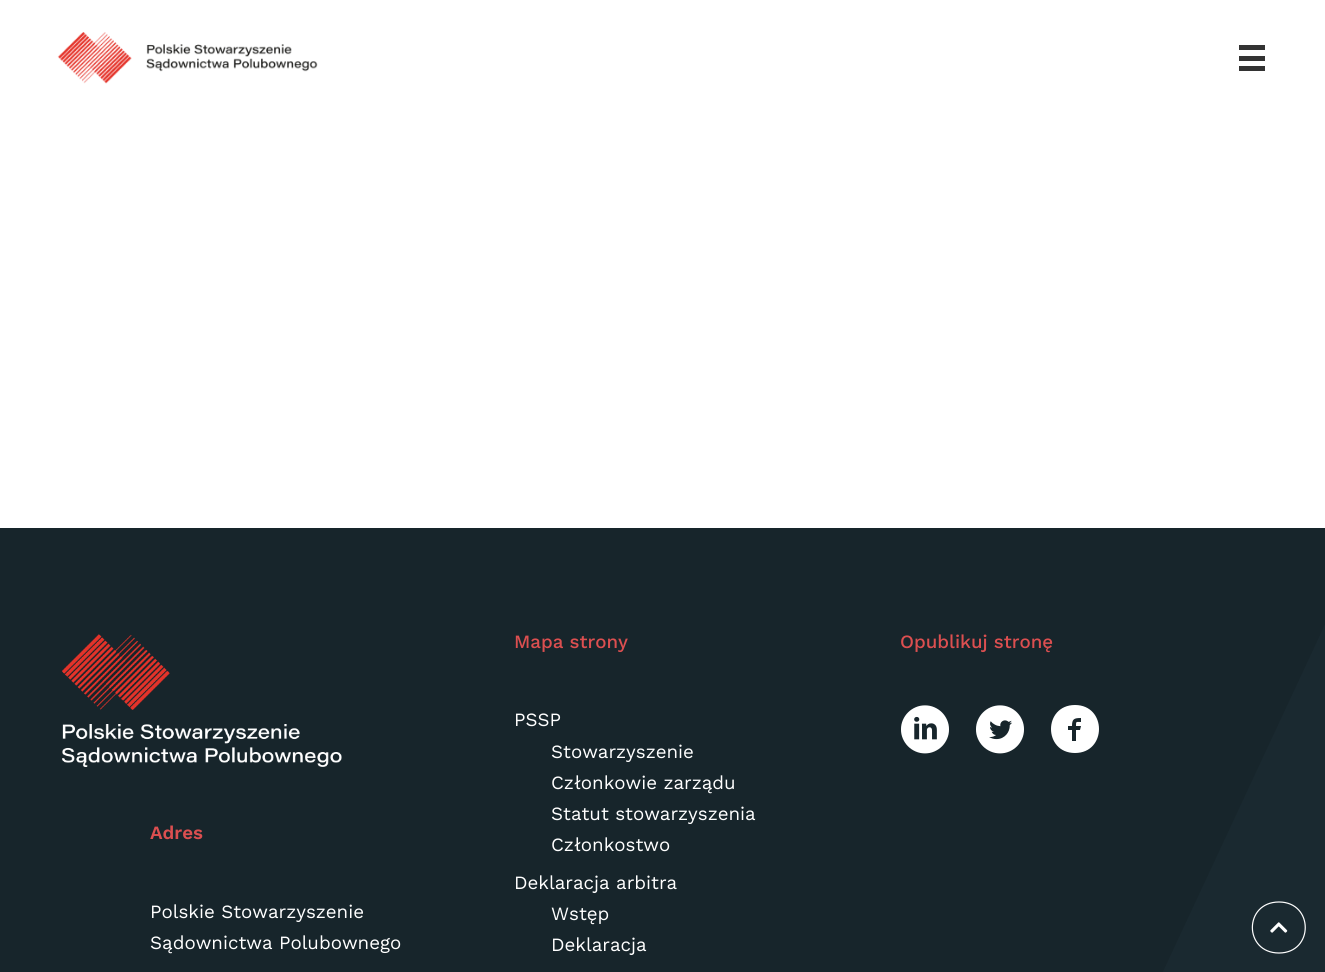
import math
import cairo


def use_color(cr, r, g, b):
  cr.set_source_rgb(r / 255, g / 255, b / 255)

def text(cr, x, y, s, family, size, color, bold=False, italic=False):
  cr.select_font_face(family, cairo.FONT_SLANT_ITALIC if italic else cairo.FONT_SLANT_NORMAL, cairo.FONT_WEIGHT_BOLD if bold else cairo.FONT_WEIGHT_NORMAL)
  cr.set_font_size(size)
  use_color(cr, *color)
  cr.move_to(x, y)
  cr.show_text(s)

def box(cr, x, y, w, h, *color):
  use_color(cr, *color)
  cr.rectangle(x, y, w, h)
  cr.fill()

def picture(cr, path, x, y, w, h):
  cr.save()
  cr.set_source_surface(cairo.ImageSurface.create_from_png(path), x, y)
  cr.rectangle(x, y, w, h)
  cr.fill()
  cr.restore()

def draw(cr):
  use_color(cr, 255, 255, 255)
  cr.paint()
  picture(cr, "img_01.png", 57, 32, 261, 52)
  box(cr, 1239, 45, 26, 5, 51, 51, 51)
  box(cr, 1239, 56, 26, 5, 51, 51, 51)
  box(cr, 1239, 66, 26, 5, 51, 51, 51)
  box(cr, 0, 528, 1325, 444, 23, 37, 43)
  picture(cr, "img_02.png", 62, 634, 280, 133)
  picture(cr, "img_03.png", 901, 705, 48, 49)
  picture(cr, "img_04.png", 976, 705, 48, 49)
  use_color(cr, 255, 255, 255)
  cr.new_path()
  cr.move_to(1075, 705)
  cr.curve_to(1043, 705, 1043, 753, 1075, 753)
  cr.curve_to(1107, 753, 1107, 705, 1075, 705)
  cr.close_path()
  cr.move_to(1081, 722)
  cr.curve_to(1076, 722, 1076, 721, 1076, 726)
  cr.line_to(1081, 726)
  cr.line_to(1080, 730)
  cr.line_to(1076, 730)
  cr.line_to(1076, 741)
  cr.line_to(1072, 741)
  cr.line_to(1072, 730)
  cr.line_to(1068, 730)
  cr.line_to(1068, 726)
  cr.line_to(1072, 726)
  cr.curve_to(1072, 719, 1074, 718, 1081, 718)
  cr.close_path()
  cr.fill()
  use_color(cr, 26, 41, 48)
  cr.new_path()
  cr.move_to(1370, 528)
  cr.line_to(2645, 528)
  cr.line_to(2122, 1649)
  cr.line_to(847, 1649)
  cr.close_path()
  cr.fill()
  cr.new_path()
  cr.move_to(1279, 902)
  cr.curve_to(1314, 902, 1314, 953, 1279, 953)
  cr.curve_to(1243.5, 953, 1243.5, 902, 1279, 902)
  cr.close_path()
  use_color(cr, 255, 255, 255)
  cr.set_line_width(1.2)
  cr.stroke()
  picture(cr, "img_05.png", 1270, 922, 18, 11)
  text(cr, 150, 839, "Adres", "Work Sans SemiBold", 18.75, (220, 79, 80))
  text(cr, 150, 918, "Polskie Stowarzyszenie", "Work Sans", 18.75, (255, 255, 255))
  text(cr, 150, 949, "Sądownictwa Polubownego", "Work Sans", 18.75, (255, 255, 255))
  text(cr, 514, 648, "Mapa strony", "Work Sans Medium", 18.75, (220, 79, 80))
  text(cr, 514, 726, "PSSP", "Work Sans", 18.75, (255, 255, 255))
  text(cr, 551, 758, "Stowarzyszenie", "Work Sans", 18.75, (255, 255, 255))
  text(cr, 551, 789, "Członkowie zarządu", "Work Sans", 18.75, (255, 255, 255))
  text(cr, 551, 820, "Statut stowarzyszenia", "Work Sans", 18.75, (255, 255, 255))
  text(cr, 551, 851, "Członkostwo", "Work Sans", 18.75, (255, 255, 255))
  text(cr, 514, 889, "Deklaracja arbitra", "Work Sans", 18.75, (255, 255, 255))
  text(cr, 551, 920, "Wstęp", "Work Sans", 18.75, (255, 255, 255))
  text(cr, 551, 951, "Deklaracja", "Work Sans", 18.75, (255, 255, 255))
  text(cr, 900, 648, "Opublikuj stronę", "Work Sans Medium", 18.75, (220, 79, 80))


surface = cairo.ImageSurface(cairo.FORMAT_RGB24, 1325, 972)
cr = cairo.Context(surface)
options = cairo.FontOptions()
options.set_hint_metrics(cairo.HINT_METRICS_OFF)
options.set_hint_style(cairo.HINT_STYLE_NONE)
cr.set_font_options(options)
cr.set_miter_limit(4)
draw(cr)
surface.write_to_png("out.png")
